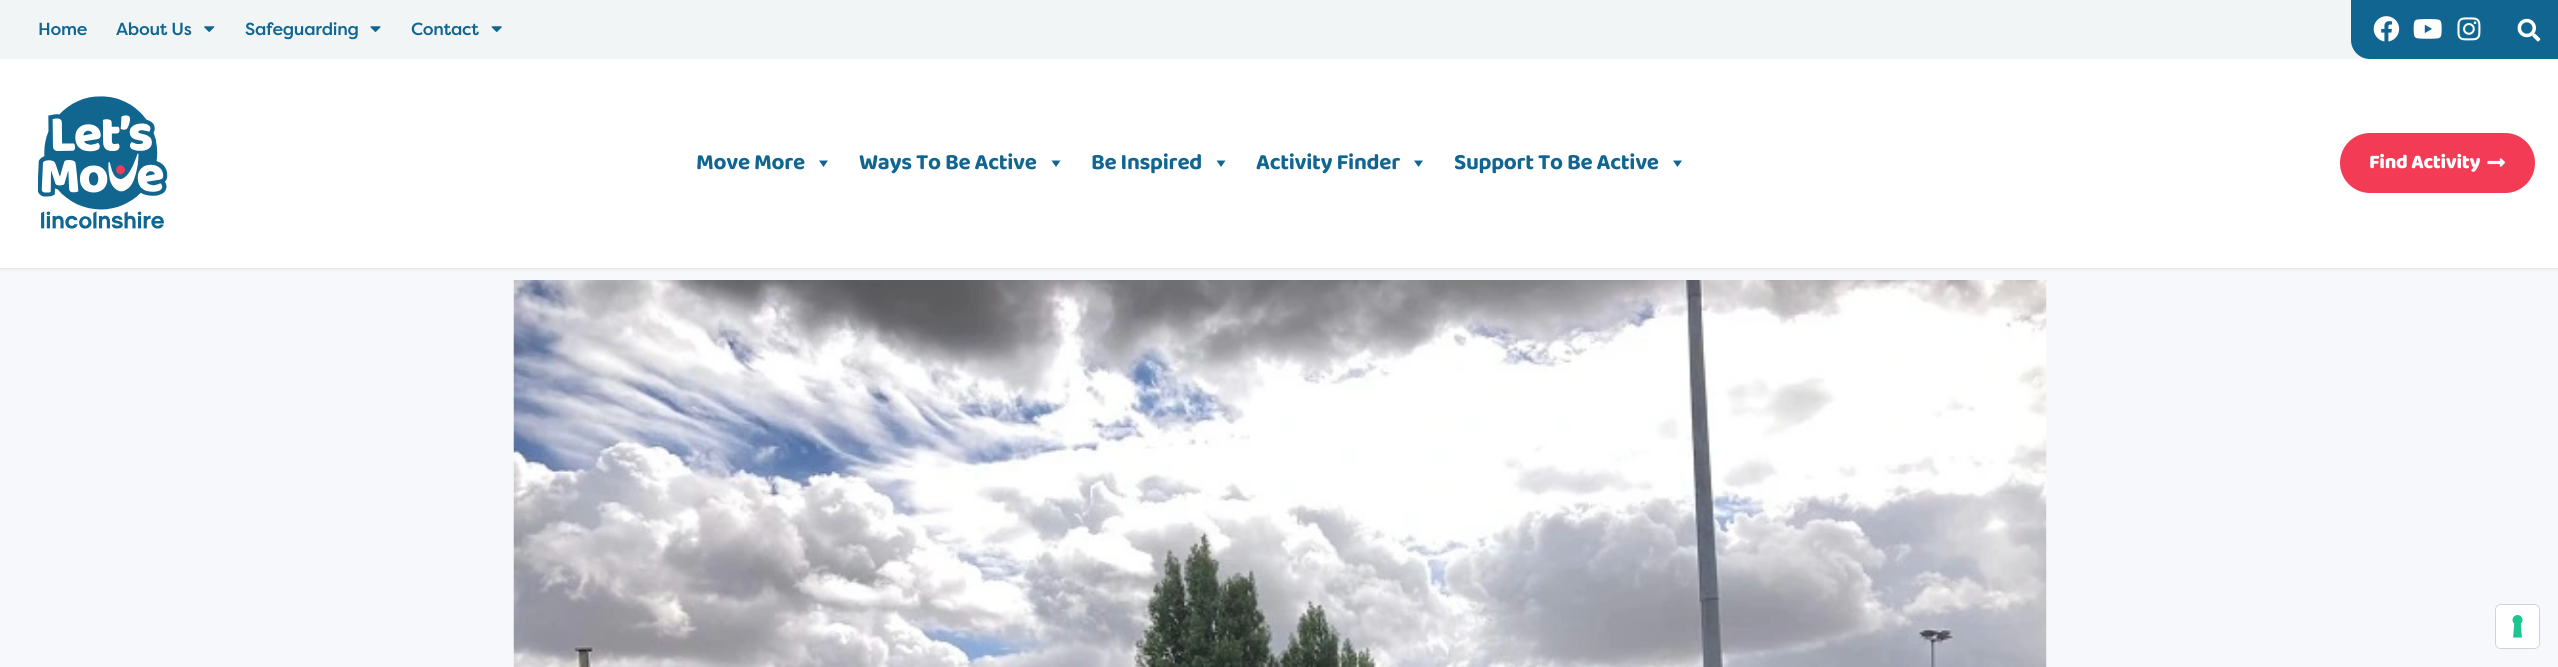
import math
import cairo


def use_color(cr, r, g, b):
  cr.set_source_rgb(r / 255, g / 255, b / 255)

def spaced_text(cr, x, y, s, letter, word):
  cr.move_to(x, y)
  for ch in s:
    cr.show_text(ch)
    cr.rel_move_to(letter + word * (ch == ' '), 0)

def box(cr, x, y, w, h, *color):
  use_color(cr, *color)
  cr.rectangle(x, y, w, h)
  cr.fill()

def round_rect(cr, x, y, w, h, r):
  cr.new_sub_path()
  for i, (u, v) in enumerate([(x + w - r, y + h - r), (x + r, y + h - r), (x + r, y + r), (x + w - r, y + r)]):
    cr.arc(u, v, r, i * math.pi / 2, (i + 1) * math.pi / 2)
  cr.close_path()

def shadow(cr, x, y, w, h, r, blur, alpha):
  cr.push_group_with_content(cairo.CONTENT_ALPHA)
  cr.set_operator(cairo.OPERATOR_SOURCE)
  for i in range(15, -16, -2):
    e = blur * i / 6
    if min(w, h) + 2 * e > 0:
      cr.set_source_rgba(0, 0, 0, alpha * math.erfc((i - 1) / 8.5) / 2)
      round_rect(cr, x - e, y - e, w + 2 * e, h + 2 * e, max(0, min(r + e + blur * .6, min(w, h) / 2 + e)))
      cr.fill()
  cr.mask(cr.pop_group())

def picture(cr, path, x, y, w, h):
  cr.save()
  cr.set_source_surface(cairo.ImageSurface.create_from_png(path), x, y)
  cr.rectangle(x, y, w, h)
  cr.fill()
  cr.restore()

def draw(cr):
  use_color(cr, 247, 248, 251)
  cr.paint()
  use_color(cr, 0, 0, 0)
  shadow(cr, 0, 0, 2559, 268, 0, 2, 0.15)
  box(cr, 0, 59, 2558, 209, 255, 255, 255)
  box(cr, 0, 0, 2370, 59, 241, 245, 246)
  picture(cr, "img_01.png", 204, 26, 11, 6)
  picture(cr, "img_02.png", 370, 26, 11, 6)
  picture(cr, "img_03.png", 491, 26, 11, 6)
  use_color(cr, 16, 102, 145)
  cr.new_path()
  cr.move_to(2351, 0)
  cr.line_to(2504, 0)
  cr.line_to(2504, 59)
  cr.line_to(2370, 59)
  cr.curve_to(2359.5, 59, 2351, 50.5, 2351, 40)
  cr.close_path()
  cr.fill()
  picture(cr, "img_04.png", 2373, 16, 27, 26)
  picture(cr, "img_05.png", 2413, 19, 29, 20)
  picture(cr, "img_06.png", 2457, 17, 24, 24)
  box(cr, 2504, 0, 54, 59, 16, 102, 145)
  picture(cr, "img_07.png", 2517, 18, 24, 24)
  picture(cr, "img_08.png", 38, 96, 130, 133)
  cr.new_path()
  cr.move_to(828, 160.5)
  cr.line_to(823.5, 167)
  cr.line_to(819, 160.5)
  cr.close_path()
  cr.fill()
  cr.new_path()
  cr.move_to(1060.5, 160.5)
  cr.line_to(1056, 167)
  cr.line_to(1051.5, 160.5)
  cr.close_path()
  cr.fill()
  cr.new_path()
  cr.move_to(1225.5, 160.5)
  cr.line_to(1221, 167)
  cr.line_to(1216.5, 160.5)
  cr.close_path()
  cr.fill()
  cr.new_path()
  cr.move_to(1423, 160.5)
  cr.line_to(1418.5, 167)
  cr.line_to(1414, 160.5)
  cr.close_path()
  cr.fill()
  cr.new_path()
  cr.move_to(1682, 160.5)
  cr.line_to(1677.5, 167)
  cr.line_to(1673, 160.5)
  cr.close_path()
  cr.fill()
  use_color(cr, 243, 59, 86)
  round_rect(cr, 2340, 133, 195, 60, 30)
  cr.fill()
  picture(cr, "img_09.png", 2487, 158, 18, 9)
  picture(cr, "img_10.png", 513, 280, 1534, 387)
  round_rect(cr, 2495.5, 604.5, 44, 44, 5.5)
  use_color(cr, 210, 211, 213)
  cr.set_line_width(1)
  cr.stroke()
  use_color(cr, 255, 255, 255)
  round_rect(cr, 2496, 605, 43, 43, 5)
  cr.fill()
  picture(cr, "img_11.png", 2512, 615, 11, 23)
  cr.select_font_face("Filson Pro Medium")
  cr.set_font_size(17.5)
  use_color(cr, 16, 102, 145)
  spaced_text(cr, 38, 35, "Home", -0.3, 0)
  spaced_text(cr, 116, 35, "About Us", -0.3, 0)
  spaced_text(cr, 245, 35, "Safeguarding", -0.3, 0)
  spaced_text(cr, 411, 35, "Contact", -0.3, 0)
  cr.select_font_face("Baloo 2", cairo.FONT_SLANT_NORMAL, cairo.FONT_WEIGHT_BOLD)
  cr.set_font_size(22.5)
  spaced_text(cr, 696, 169, "Move More", -0.3, 0)
  spaced_text(cr, 859, 169, "Ways To Be Active", -0.3, 0)
  spaced_text(cr, 1091, 169, "Be Inspired", -0.3, 0)
  spaced_text(cr, 1256, 169, "Activity Finder", -0.3, 0)
  spaced_text(cr, 1454, 169, "Support To Be Active", -0.3, 0)
  cr.select_font_face("Baloo 2 ExtraBold")
  cr.set_font_size(20)
  use_color(cr, 255, 255, 255)
  spaced_text(cr, 2369, 168, "Find Activity", -0.3, 0)


surface = cairo.ImageSurface(cairo.FORMAT_RGB24, 2558, 667)
cr = cairo.Context(surface)
options = cairo.FontOptions()
options.set_hint_metrics(cairo.HINT_METRICS_OFF)
options.set_hint_style(cairo.HINT_STYLE_NONE)
cr.set_font_options(options)
cr.set_miter_limit(4)
draw(cr)
surface.write_to_png("out.png")
